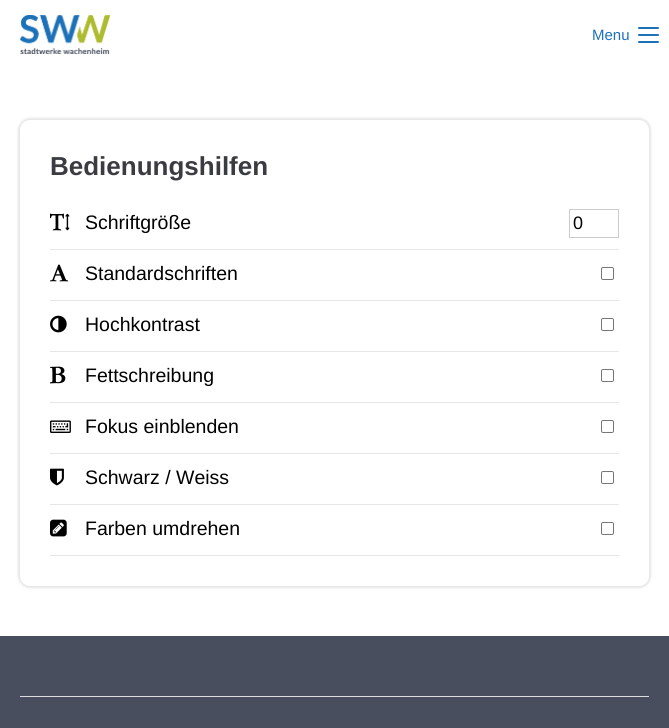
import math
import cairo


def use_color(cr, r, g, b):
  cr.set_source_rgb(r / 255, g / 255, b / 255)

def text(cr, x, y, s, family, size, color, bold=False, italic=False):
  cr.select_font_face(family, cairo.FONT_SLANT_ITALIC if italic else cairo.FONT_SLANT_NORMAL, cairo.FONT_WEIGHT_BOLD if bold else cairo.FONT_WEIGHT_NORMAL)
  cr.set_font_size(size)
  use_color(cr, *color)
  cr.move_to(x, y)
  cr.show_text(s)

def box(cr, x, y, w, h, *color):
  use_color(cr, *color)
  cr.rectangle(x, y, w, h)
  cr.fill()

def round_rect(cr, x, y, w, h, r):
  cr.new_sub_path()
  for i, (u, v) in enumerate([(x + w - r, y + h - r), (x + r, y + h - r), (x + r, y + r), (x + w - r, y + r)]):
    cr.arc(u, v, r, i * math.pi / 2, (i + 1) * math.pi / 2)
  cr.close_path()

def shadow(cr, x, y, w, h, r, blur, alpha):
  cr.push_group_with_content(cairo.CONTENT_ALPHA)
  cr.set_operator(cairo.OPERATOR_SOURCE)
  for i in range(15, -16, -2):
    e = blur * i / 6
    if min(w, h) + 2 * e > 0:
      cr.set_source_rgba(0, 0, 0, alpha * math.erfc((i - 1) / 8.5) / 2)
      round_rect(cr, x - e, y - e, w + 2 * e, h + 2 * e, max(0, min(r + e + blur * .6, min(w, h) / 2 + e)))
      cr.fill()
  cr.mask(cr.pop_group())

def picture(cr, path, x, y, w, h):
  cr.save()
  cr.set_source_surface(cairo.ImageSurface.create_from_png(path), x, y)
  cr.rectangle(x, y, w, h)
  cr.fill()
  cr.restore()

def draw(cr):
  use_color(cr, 255, 255, 255)
  cr.paint()
  picture(cr, "img_01.png", 20, 15, 90, 39)
  use_color(cr, 29, 113, 184)
  round_rect(cr, 638, 34, 21, 2, 1)
  cr.fill()
  round_rect(cr, 638, 27, 21, 2, 1)
  cr.fill()
  round_rect(cr, 638, 41, 21, 2, 1)
  cr.fill()
  use_color(cr, 0, 0, 0)
  shadow(cr, 18, 118, 633, 470, 12, 1, 0.1)
  use_color(cr, 255, 255, 255)
  round_rect(cr, 20, 120, 629, 466, 10)
  cr.fill()
  box(cr, 50, 249, 569, 1, 230, 230, 230)
  picture(cr, "img_02.png", 50, 213, 20, 18)
  cr.rectangle(569.5, 209.5, 49, 28)
  use_color(cr, 204, 204, 204)
  cr.set_line_width(1)
  cr.stroke()
  box(cr, 50, 300, 569, 1, 230, 230, 230)
  picture(cr, "img_03.png", 50, 264, 19, 18)
  round_rect(cr, 601.5, 267.5, 12, 12, 1.5)
  use_color(cr, 118, 118, 118)
  cr.stroke()
  box(cr, 50, 351, 569, 1, 230, 230, 230)
  picture(cr, "img_04.png", 50, 315, 17, 18)
  round_rect(cr, 601.5, 318.5, 12, 12, 1.5)
  use_color(cr, 118, 118, 118)
  cr.stroke()
  box(cr, 50, 402, 569, 1, 230, 230, 230)
  picture(cr, "img_05.png", 50, 366, 16, 18)
  round_rect(cr, 601.5, 369.5, 12, 12, 1.5)
  use_color(cr, 118, 118, 118)
  cr.stroke()
  box(cr, 50, 453, 569, 1, 230, 230, 230)
  picture(cr, "img_06.png", 50, 420, 21, 13)
  round_rect(cr, 601.5, 420.5, 12, 12, 1.5)
  use_color(cr, 118, 118, 118)
  cr.stroke()
  box(cr, 50, 504, 569, 1, 230, 230, 230)
  picture(cr, "img_07.png", 50, 468, 14, 18)
  round_rect(cr, 601.5, 471.5, 12, 12, 1.5)
  use_color(cr, 118, 118, 118)
  cr.stroke()
  box(cr, 50, 555, 569, 1, 230, 230, 230)
  picture(cr, "img_08.png", 50, 519, 17, 18)
  round_rect(cr, 601.5, 522.5, 12, 12, 1.5)
  use_color(cr, 118, 118, 118)
  cr.stroke()
  box(cr, 0, 636, 669, 92, 73, 78, 94)
  box(cr, 20, 696, 629, 1, 219, 220, 223)
  text(cr, 592, 40, "Menu", "Liberation Sans", 15, (29, 113, 184))
  text(cr, 50, 175, "Bedienungshilfen", "Liberation Sans", 26, (59, 60, 66), bold=True)
  text(cr, 85, 229, "Schriftgröße", "Liberation Sans", 19.5, (0, 0, 0))
  text(cr, 573, 229, "0", "Liberation Sans", 18, (0, 0, 0))
  text(cr, 85, 280, "Standardschriften", "Liberation Sans", 19.5, (0, 0, 0))
  text(cr, 85, 331, "Hochkontrast", "Liberation Sans", 19.5, (0, 0, 0))
  text(cr, 85, 382, "Fettschreibung", "Liberation Sans", 19.5, (0, 0, 0))
  text(cr, 85, 433, "Fokus einblenden", "Liberation Sans", 19.5, (0, 0, 0))
  text(cr, 85, 484, "Schwarz / Weiss", "Liberation Sans", 19.5, (0, 0, 0))
  text(cr, 85, 535, "Farben umdrehen", "Liberation Sans", 19.5, (0, 0, 0))


surface = cairo.ImageSurface(cairo.FORMAT_RGB24, 669, 728)
cr = cairo.Context(surface)
options = cairo.FontOptions()
options.set_hint_metrics(cairo.HINT_METRICS_OFF)
options.set_hint_style(cairo.HINT_STYLE_NONE)
cr.set_font_options(options)
cr.set_miter_limit(4)
draw(cr)
surface.write_to_png("out.png")
